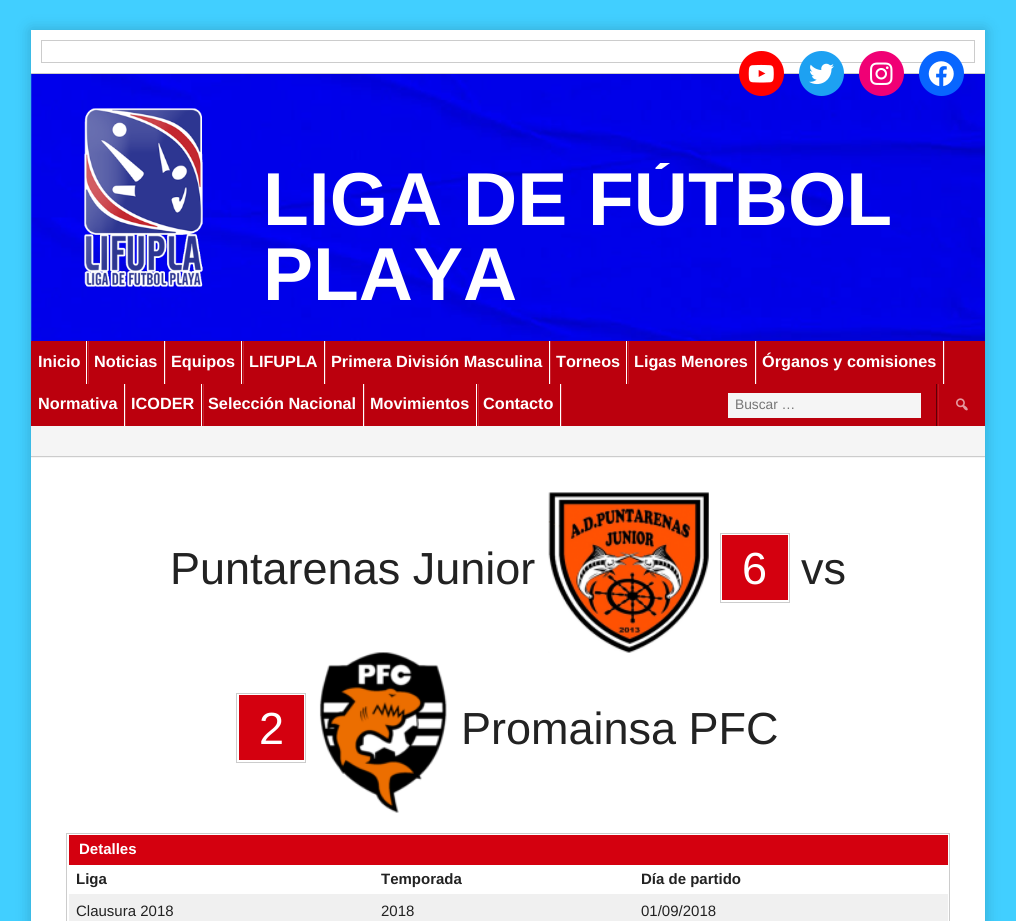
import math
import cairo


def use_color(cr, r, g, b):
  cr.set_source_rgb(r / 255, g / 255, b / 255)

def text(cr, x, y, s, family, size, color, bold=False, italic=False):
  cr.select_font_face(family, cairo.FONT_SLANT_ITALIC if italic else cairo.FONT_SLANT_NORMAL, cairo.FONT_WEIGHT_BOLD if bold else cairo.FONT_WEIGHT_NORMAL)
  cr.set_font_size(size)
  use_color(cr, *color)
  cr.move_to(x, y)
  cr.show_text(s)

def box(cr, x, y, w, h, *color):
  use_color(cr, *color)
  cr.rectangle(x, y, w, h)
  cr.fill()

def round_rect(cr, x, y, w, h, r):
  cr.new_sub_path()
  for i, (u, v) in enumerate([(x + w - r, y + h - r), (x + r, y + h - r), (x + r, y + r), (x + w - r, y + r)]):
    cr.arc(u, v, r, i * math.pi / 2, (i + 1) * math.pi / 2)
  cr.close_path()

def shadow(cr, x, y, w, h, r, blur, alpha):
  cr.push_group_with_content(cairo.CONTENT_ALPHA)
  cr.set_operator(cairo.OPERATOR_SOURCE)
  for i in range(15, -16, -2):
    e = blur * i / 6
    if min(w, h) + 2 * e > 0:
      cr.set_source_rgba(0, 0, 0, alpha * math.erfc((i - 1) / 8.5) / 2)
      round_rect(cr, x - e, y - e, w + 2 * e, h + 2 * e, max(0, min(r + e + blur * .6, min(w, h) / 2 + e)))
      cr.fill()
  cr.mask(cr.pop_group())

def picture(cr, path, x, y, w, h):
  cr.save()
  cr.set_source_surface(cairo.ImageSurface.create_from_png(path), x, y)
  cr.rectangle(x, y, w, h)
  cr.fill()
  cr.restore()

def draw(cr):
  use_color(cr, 65, 207, 255)
  cr.paint()
  use_color(cr, 0, 0, 0)
  shadow(cr, 31, 30, 954, 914, 0, 7.5, 0.2)
  picture(cr, "img_01.png", 31, 74, 954, 267)
  box(cr, 31, 30, 954, 43, 255, 255, 255)
  box(cr, 31, 73, 954, 1, 204, 204, 204)
  cr.rectangle(41.5, 40.5, 933, 22)
  cr.set_line_width(1)
  cr.stroke()
  use_color(cr, 255, 0, 0)
  cr.arc(761.5, 73.5, 22.5, 0, 2 * math.pi)
  cr.fill()
  picture(cr, "img_02.png", 748, 64, 26, 19)
  use_color(cr, 29, 161, 242)
  cr.arc(821.5, 73.5, 22.5, 0, 2 * math.pi)
  cr.fill()
  picture(cr, "img_03.png", 809, 63, 25, 22)
  use_color(cr, 240, 0, 117)
  cr.arc(881.5, 73.5, 22.5, 0, 2 * math.pi)
  cr.fill()
  picture(cr, "img_04.png", 870, 62, 23, 23)
  use_color(cr, 8, 102, 255)
  cr.arc(941.5, 73.5, 22.5, 0, 2 * math.pi)
  cr.fill()
  picture(cr, "img_05.png", 928, 61, 26, 26)
  picture(cr, "img_06.png", 84, 108, 119, 179)
  box(cr, 31, 341, 954, 85, 187, 0, 13)
  box(cr, 88, 341, 1, 43, 197, 38, 49)
  box(cr, 86, 341, 1, 43, 255, 255, 255)
  box(cr, 165, 341, 1, 43, 197, 38, 49)
  box(cr, 164, 341, 1, 43, 255, 255, 255)
  box(cr, 243, 341, 1, 43, 197, 38, 49)
  box(cr, 241, 341, 1, 43, 255, 255, 255)
  box(cr, 325, 341, 1, 43, 197, 38, 49)
  box(cr, 324, 341, 1, 43, 255, 255, 255)
  box(cr, 550, 341, 1, 43, 197, 38, 49)
  box(cr, 549, 341, 1, 43, 255, 255, 255)
  box(cr, 628, 341, 1, 43, 197, 38, 49)
  box(cr, 626, 341, 1, 43, 255, 255, 255)
  box(cr, 756, 341, 1, 43, 197, 38, 49)
  box(cr, 755, 341, 1, 43, 255, 255, 255)
  box(cr, 944, 341, 1, 43, 197, 38, 49)
  box(cr, 943, 341, 1, 43, 255, 255, 255)
  box(cr, 125, 384, 1, 42, 197, 38, 49)
  box(cr, 124, 384, 1, 42, 255, 255, 255)
  box(cr, 203, 384, 1, 42, 197, 38, 49)
  box(cr, 201, 384, 1, 42, 255, 255, 255)
  box(cr, 364, 384, 1, 42, 197, 38, 49)
  box(cr, 363, 384, 1, 42, 255, 255, 255)
  box(cr, 478, 384, 1, 42, 197, 38, 49)
  box(cr, 476, 384, 1, 42, 255, 255, 255)
  box(cr, 561, 384, 1, 42, 197, 38, 49)
  box(cr, 560, 384, 1, 42, 255, 255, 255)
  box(cr, 936, 384, 1, 42, 94, 0, 7)
  box(cr, 728, 393, 193, 25, 245, 245, 245)
  box(cr, 938, 384, 1, 42, 193, 23, 35)
  picture(cr, "img_07.png", 956, 398, 12, 13)
  box(cr, 31, 458, 954, 463, 255, 255, 255)
  box(cr, 31, 426, 954, 32, 245, 245, 245)
  box(cr, 31, 456, 954, 1, 204, 204, 204)
  picture(cr, "img_08.png", 548, 492, 161, 161)
  box(cr, 722, 535, 66, 65, 212, 0, 15)
  cr.rectangle(720.5, 533.5, 69, 69)
  use_color(cr, 204, 204, 204)
  cr.stroke()
  box(cr, 239, 695, 65, 65, 212, 0, 15)
  cr.rectangle(236.5, 693.5, 69, 69)
  use_color(cr, 204, 204, 204)
  cr.stroke()
  picture(cr, "img_09.png", 319, 652, 128, 161)
  cr.rectangle(66.5, 833.5, 883, 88)
  cr.stroke()
  box(cr, 69, 835, 879, 30, 212, 0, 15)
  box(cr, 69, 894, 879, 27, 240, 240, 240)
  cr.save()
  cr.rectangle(239, 163, 726, 150)
  cr.clip()
  text(cr, 263, 225, "LIGA DE FÚTBOL", "Liberation Sans", 75, (255, 255, 255), bold=True)
  cr.restore()
  text(cr, 263, 300, "PLAYA", "Liberation Sans", 75, (255, 255, 255), bold=True)
  text(cr, 38, 367, "Inicio", "Liberation Sans", 16.25, (255, 255, 255), bold=True)
  text(cr, 94, 367, "Noticias", "Liberation Sans", 16.25, (255, 255, 255), bold=True)
  text(cr, 171, 367, "Equipos", "Liberation Sans", 16.25, (255, 255, 255), bold=True)
  text(cr, 249, 367, "LIFUPLA", "Liberation Sans", 16.25, (255, 255, 255), bold=True)
  text(cr, 331, 367, "Primera División Masculina", "Liberation Sans", 16.25, (255, 255, 255), bold=True)
  text(cr, 556, 367, "Torneos", "Liberation Sans", 16.25, (255, 255, 255), bold=True)
  text(cr, 634, 367, "Ligas Menores", "Liberation Sans", 16.25, (255, 255, 255), bold=True)
  text(cr, 762, 367, "Órganos y comisiones", "Liberation Sans", 16.25, (255, 255, 255), bold=True)
  text(cr, 38, 409, "Normativa", "Liberation Sans", 16.25, (255, 255, 255), bold=True)
  text(cr, 131, 409, "ICODER", "Liberation Sans", 16.25, (255, 255, 255), bold=True)
  text(cr, 208, 409, "Selección Nacional", "Liberation Sans", 16.25, (255, 255, 255), bold=True)
  text(cr, 370, 409, "Movimientos", "Liberation Sans", 16.25, (255, 255, 255), bold=True)
  text(cr, 483, 409, "Contacto", "Liberation Sans", 16.25, (255, 255, 255), bold=True)
  text(cr, 735, 409, "Buscar …", "Liberation Sans", 13.75, (117, 117, 117))
  text(cr, 170, 584, "Puntarenas Junior", "Liberation Sans", 45, (34, 34, 34))
  text(cr, 742, 584, "6", "Liberation Sans", 45, (255, 255, 255))
  text(cr, 801, 584, "vs", "Liberation Sans", 45, (34, 34, 34))
  text(cr, 259, 744, "2", "Liberation Sans", 45, (255, 255, 255))
  text(cr, 461, 744, "Promainsa PFC", "Liberation Sans", 45, (34, 34, 34))
  text(cr, 79, 854, "Detalles", "Liberation Sans", 15, (255, 255, 255), bold=True)
  text(cr, 76, 884, "Liga", "Liberation Sans", 15, (34, 34, 34), bold=True)
  text(cr, 381, 884, "Temporada", "Liberation Sans", 15, (34, 34, 34), bold=True)
  text(cr, 641, 884, "Día de partido", "Liberation Sans", 15, (34, 34, 34), bold=True)
  text(cr, 76, 916, "Clausura 2018", "Liberation Sans", 15, (34, 34, 34))
  text(cr, 381, 916, "2018", "Liberation Sans", 15, (34, 34, 34))
  text(cr, 641, 916, "01/09/2018", "Liberation Sans", 15, (34, 34, 34))


surface = cairo.ImageSurface(cairo.FORMAT_RGB24, 1016, 921)
cr = cairo.Context(surface)
options = cairo.FontOptions()
options.set_hint_metrics(cairo.HINT_METRICS_OFF)
options.set_hint_style(cairo.HINT_STYLE_NONE)
cr.set_font_options(options)
cr.set_miter_limit(4)
draw(cr)
surface.write_to_png("out.png")
